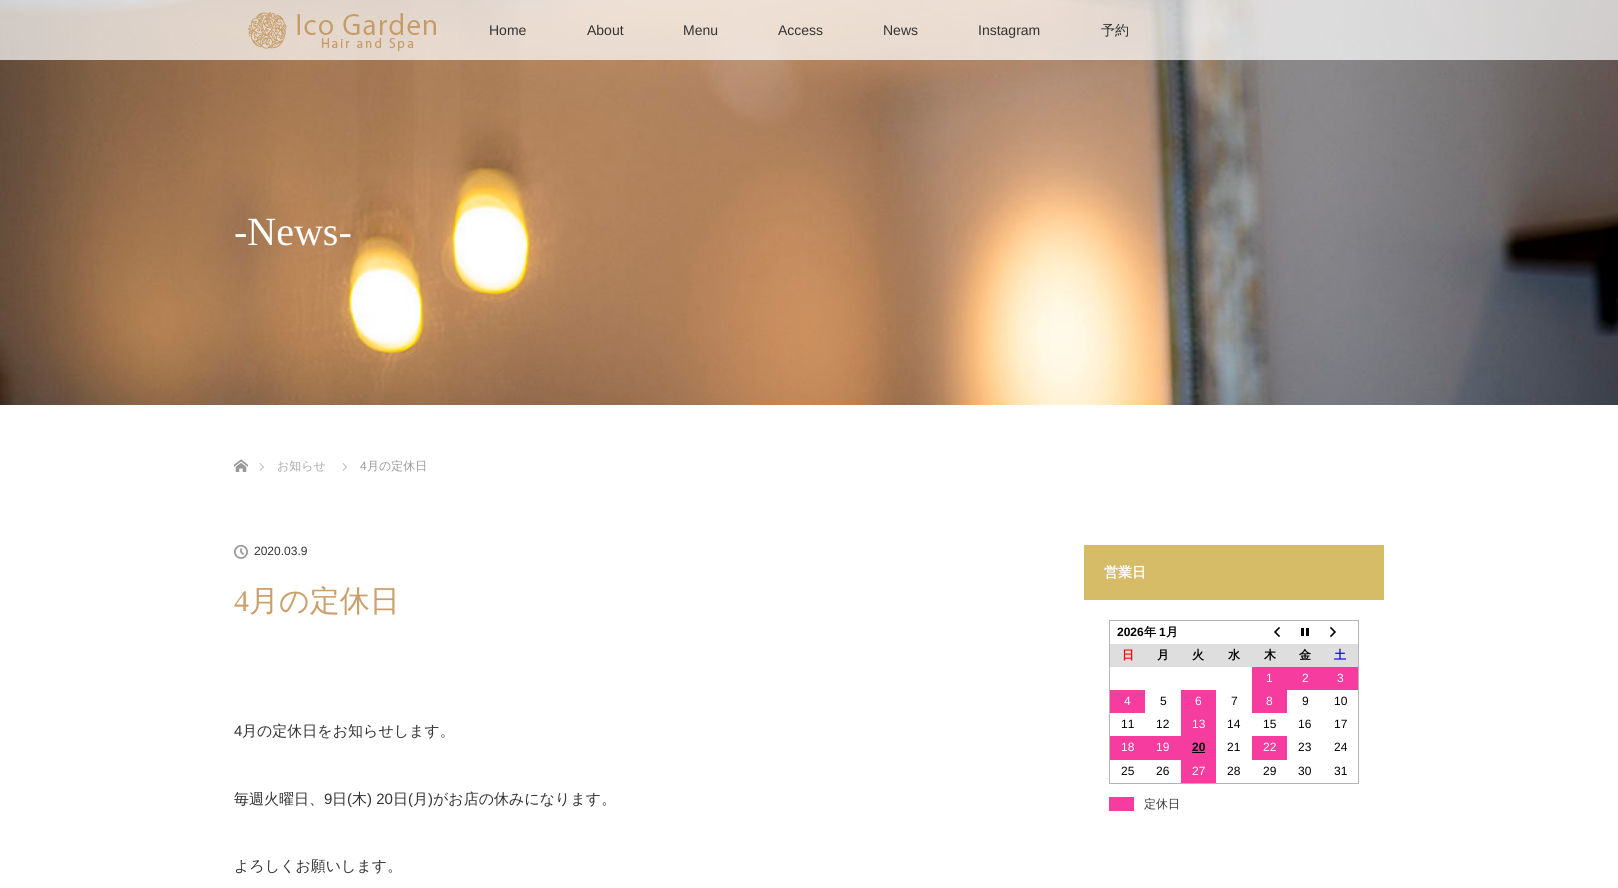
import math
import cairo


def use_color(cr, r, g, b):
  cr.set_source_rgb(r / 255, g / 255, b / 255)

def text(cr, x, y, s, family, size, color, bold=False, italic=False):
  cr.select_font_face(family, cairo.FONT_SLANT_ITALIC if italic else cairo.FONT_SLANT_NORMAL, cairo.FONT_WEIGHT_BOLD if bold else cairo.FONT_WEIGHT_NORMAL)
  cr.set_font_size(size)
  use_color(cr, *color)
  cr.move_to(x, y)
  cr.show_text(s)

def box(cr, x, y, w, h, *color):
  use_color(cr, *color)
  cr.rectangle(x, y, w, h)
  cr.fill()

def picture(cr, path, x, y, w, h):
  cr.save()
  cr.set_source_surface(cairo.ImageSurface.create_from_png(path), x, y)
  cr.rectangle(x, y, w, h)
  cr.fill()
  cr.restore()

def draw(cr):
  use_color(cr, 255, 255, 255)
  cr.paint()
  picture(cr, "img_02.png", 0, 0, 1618, 405)
  cr.set_source_rgba(1, 1, 1, 0.7)
  cr.rectangle(0, 0, 1618, 60)
  cr.fill()
  picture(cr, "img_01.png", 248, 12, 188, 39)
  picture(cr, "img_03.png", 234, 459, 14, 13)
  picture(cr, "img_04.png", 259, 463, 5, 8)
  picture(cr, "img_04.png", 342, 463, 5, 8)
  picture(cr, "img_05.png", 234, 544, 14, 15)
  box(cr, 1084, 545, 300, 55, 215, 188, 103)
  box(cr, 1109, 620, 250, 1, 181, 181, 182)
  box(cr, 1358, 620, 1, 164, 181, 181, 182)
  box(cr, 1109, 783, 250, 1, 181, 181, 182)
  box(cr, 1109, 620, 1, 164, 181, 181, 182)
  picture(cr, "img_06.png", 1274, 627, 6, 10)
  picture(cr, "img_07.png", 1301, 628, 8, 8)
  picture(cr, "img_08.png", 1330, 627, 6, 10)
  box(cr, 1110, 644, 248, 23, 222, 222, 222)
  box(cr, 1252, 667, 106, 23, 246, 60, 159)
  box(cr, 1110, 690, 35, 23, 246, 60, 159)
  box(cr, 1181, 690, 35, 46, 246, 60, 159)
  box(cr, 1252, 690, 35, 23, 246, 60, 159)
  box(cr, 1110, 736, 106, 24, 246, 60, 159)
  box(cr, 1192, 752, 13, 1, 0, 0, 0)
  box(cr, 1252, 736, 35, 24, 246, 60, 159)
  box(cr, 1181, 760, 35, 23, 246, 60, 159)
  box(cr, 1109, 797, 25, 14, 246, 60, 159)
  text(cr, 489, 35, "Home", "Liberation Sans", 14, (51, 51, 51))
  text(cr, 587, 35, "About", "Liberation Sans", 14, (51, 51, 51))
  text(cr, 683, 35, "Menu", "Liberation Sans", 14, (51, 51, 51))
  text(cr, 778, 35, "Access", "Liberation Sans", 14, (51, 51, 51))
  text(cr, 883, 35, "News", "Liberation Sans", 14, (51, 51, 51))
  text(cr, 978, 35, "Instagram", "Liberation Sans", 14, (51, 51, 51))
  text(cr, 1101, 35, "予約", "WenQuanYi Zen Hei Medium", 14, (51, 51, 51))
  text(cr, 234, 245, "-News-", "Liberation Serif", 40, (255, 255, 255))
  text(cr, 277, 470, "お知らせ", "WenQuanYi Zen Hei Medium", 12, (170, 170, 170))
  text(cr, 360, 470, "4", "Liberation Sans", 12, (153, 153, 153))
  text(cr, 367, 470, "月の定休日", "WenQuanYi Zen Hei Medium", 12, (153, 153, 153))
  text(cr, 254, 555, "2020.03.9", "Liberation Sans", 12, (51, 51, 51))
  text(cr, 234, 611, "4", "Liberation Serif", 30, (202, 159, 107))
  text(cr, 249, 611, "月の定休日", "WenQuanYi Zen Hei Medium", 30, (202, 159, 107))
  text(cr, 234, 736, "4", "Liberation Sans", 15, (51, 51, 51))
  text(cr, 242, 736, "月の定休日をお知らせします。", "WenQuanYi Zen Hei Medium", 15, (51, 51, 51))
  text(cr, 234, 804, "毎週火曜日、", "WenQuanYi Zen Hei Medium", 15, (51, 51, 51))
  text(cr, 324, 804, "9", "Liberation Sans", 15, (51, 51, 51))
  text(cr, 332, 804, "日", "WenQuanYi Zen Hei Medium", 15, (51, 51, 51))
  text(cr, 347, 804, "(", "Liberation Sans", 15, (51, 51, 51))
  text(cr, 352, 804, "木", "WenQuanYi Zen Hei Medium", 15, (51, 51, 51))
  text(cr, 367, 804, ") 20", "Liberation Sans", 15, (51, 51, 51))
  text(cr, 393, 804, "日", "WenQuanYi Zen Hei Medium", 15, (51, 51, 51))
  text(cr, 408, 804, "(", "Liberation Sans", 15, (51, 51, 51))
  text(cr, 413, 804, "月", "WenQuanYi Zen Hei Medium", 15, (51, 51, 51))
  text(cr, 428, 804, ")", "Liberation Sans", 15, (51, 51, 51))
  text(cr, 433, 804, "がお店の休みになります。", "WenQuanYi Zen Hei Medium", 15, (51, 51, 51))
  text(cr, 234, 871, "よろしくお願いします。", "WenQuanYi Zen Hei Medium", 15, (51, 51, 51))
  text(cr, 1104, 577, "営業日", "WenQuanYi Zen Hei", 14, (255, 255, 255), bold=True)
  text(cr, 1117, 636, "2026", "Liberation Sans", 12, (0, 0, 0), bold=True)
  text(cr, 1144, 636, "年", "WenQuanYi Zen Hei", 12, (0, 0, 0), bold=True)
  text(cr, 1159, 636, "1", "Liberation Sans", 12, (0, 0, 0), bold=True)
  text(cr, 1166, 636, "月", "WenQuanYi Zen Hei", 12, (0, 0, 0), bold=True)
  text(cr, 1122, 659, "日", "WenQuanYi Zen Hei", 12, (255, 0, 0), bold=True)
  text(cr, 1157, 659, "月", "WenQuanYi Zen Hei", 12, (0, 0, 0), bold=True)
  text(cr, 1192, 659, "火", "WenQuanYi Zen Hei", 12, (0, 0, 0), bold=True)
  text(cr, 1228, 659, "水", "WenQuanYi Zen Hei", 12, (0, 0, 0), bold=True)
  text(cr, 1264, 659, "木", "WenQuanYi Zen Hei", 12, (0, 0, 0), bold=True)
  text(cr, 1299, 659, "金", "WenQuanYi Zen Hei", 12, (0, 0, 0), bold=True)
  text(cr, 1334, 659, "土", "WenQuanYi Zen Hei", 12, (0, 0, 255), bold=True)
  text(cr, 1266, 682, "1", "Liberation Sans", 12, (255, 255, 255))
  text(cr, 1302, 682, "2", "Liberation Sans", 12, (255, 255, 255))
  text(cr, 1337, 682, "3", "Liberation Sans", 12, (255, 255, 255))
  text(cr, 1124, 705, "4", "Liberation Sans", 12, (255, 255, 255))
  text(cr, 1160, 705, "5", "Liberation Sans", 12, (0, 0, 0))
  text(cr, 1195, 705, "6", "Liberation Sans", 12, (255, 255, 255))
  text(cr, 1231, 705, "7", "Liberation Sans", 12, (0, 0, 0))
  text(cr, 1266, 705, "8", "Liberation Sans", 12, (255, 255, 255))
  text(cr, 1302, 705, "9", "Liberation Sans", 12, (0, 0, 0))
  text(cr, 1334, 705, "10", "Liberation Sans", 12, (0, 0, 0))
  text(cr, 1121, 728, "11", "Liberation Sans", 12, (0, 0, 0))
  text(cr, 1156, 728, "12", "Liberation Sans", 12, (0, 0, 0))
  text(cr, 1192, 728, "13", "Liberation Sans", 12, (255, 255, 255))
  text(cr, 1227, 728, "14", "Liberation Sans", 12, (0, 0, 0))
  text(cr, 1263, 728, "15", "Liberation Sans", 12, (0, 0, 0))
  text(cr, 1298, 728, "16", "Liberation Sans", 12, (0, 0, 0))
  text(cr, 1334, 728, "17", "Liberation Sans", 12, (0, 0, 0))
  text(cr, 1121, 751, "18", "Liberation Sans", 12, (255, 255, 255))
  text(cr, 1156, 751, "19", "Liberation Sans", 12, (255, 255, 255))
  text(cr, 1192, 751, "20", "Liberation Sans", 12, (0, 0, 0), bold=True)
  text(cr, 1227, 751, "21", "Liberation Sans", 12, (0, 0, 0))
  text(cr, 1263, 751, "22", "Liberation Sans", 12, (255, 255, 255))
  text(cr, 1298, 751, "23", "Liberation Sans", 12, (0, 0, 0))
  text(cr, 1334, 751, "24", "Liberation Sans", 12, (0, 0, 0))
  text(cr, 1121, 775, "25", "Liberation Sans", 12, (0, 0, 0))
  text(cr, 1156, 775, "26", "Liberation Sans", 12, (0, 0, 0))
  text(cr, 1192, 775, "27", "Liberation Sans", 12, (255, 255, 255))
  text(cr, 1227, 775, "28", "Liberation Sans", 12, (0, 0, 0))
  text(cr, 1263, 775, "29", "Liberation Sans", 12, (0, 0, 0))
  text(cr, 1298, 775, "30", "Liberation Sans", 12, (0, 0, 0))
  text(cr, 1334, 775, "31", "Liberation Sans", 12, (0, 0, 0))
  text(cr, 1144, 808, "定休日", "WenQuanYi Zen Hei Medium", 12, (51, 51, 51))


surface = cairo.ImageSurface(cairo.FORMAT_RGB24, 1618, 888)
cr = cairo.Context(surface)
options = cairo.FontOptions()
options.set_hint_metrics(cairo.HINT_METRICS_OFF)
options.set_hint_style(cairo.HINT_STYLE_NONE)
cr.set_font_options(options)
cr.set_miter_limit(4)
draw(cr)
surface.write_to_png("out.png")
